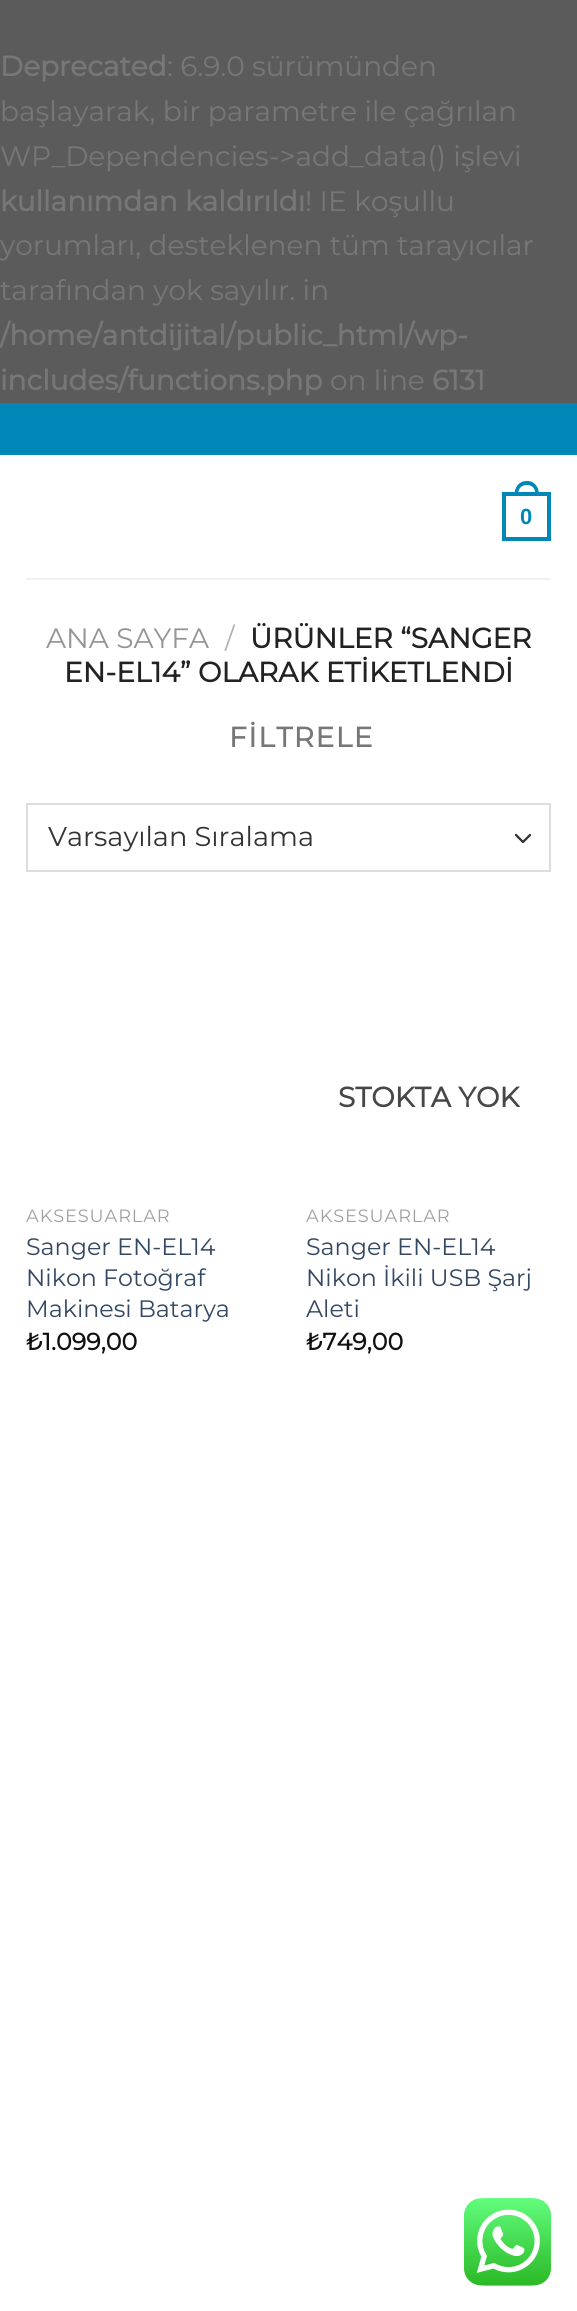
import math
import cairo


def use_color(cr, r, g, b):
  cr.set_source_rgb(r / 255, g / 255, b / 255)

def text(cr, x, y, s, family, size, color, bold=False, italic=False):
  cr.select_font_face(family, cairo.FONT_SLANT_ITALIC if italic else cairo.FONT_SLANT_NORMAL, cairo.FONT_WEIGHT_BOLD if bold else cairo.FONT_WEIGHT_NORMAL)
  cr.set_font_size(size)
  use_color(cr, *color)
  cr.move_to(x, y)
  cr.show_text(s)

def spaced_text(cr, x, y, s, letter, word):
  cr.move_to(x, y)
  for ch in s:
    cr.show_text(ch)
    cr.rel_move_to(letter + word * (ch == ' '), 0)

def box(cr, x, y, w, h, *color):
  use_color(cr, *color)
  cr.rectangle(x, y, w, h)
  cr.fill()

def picture(cr, path, x, y, w, h):
  cr.save()
  cr.set_source_surface(cairo.ImageSurface.create_from_png(path), x, y)
  cr.rectangle(x, y, w, h)
  cr.fill()
  cr.restore()

def draw(cr):
  use_color(cr, 91, 91, 91)
  cr.paint()
  box(cr, 0, 455, 577, 1856, 255, 255, 255)
  box(cr, 0, 403, 577, 52, 0, 135, 183)
  cr.rectangle(504, 494, 45, 45)
  cr.set_line_width(4)
  cr.stroke()
  cr.set_fill_rule(cairo.FILL_RULE_EVEN_ODD)
  cr.new_path()
  cr.move_to(527, 481)
  cr.curve_to(535, 481, 539, 487.5, 539, 495)
  cr.line_to(514.5, 495)
  cr.curve_to(514.5, 487.5, 518.5, 481, 527, 481)
  cr.close_path()
  cr.move_to(527, 485)
  cr.curve_to(533, 485, 535.5, 489.5, 535.5, 495)
  cr.line_to(518, 495)
  cr.curve_to(518, 489.5, 520.5, 485, 527, 485)
  cr.close_path()
  cr.fill()
  box(cr, 26, 578, 525, 2, 241, 241, 241)
  cr.new_path()
  cr.move_to(516, 835)
  cr.line_to(523, 842)
  cr.line_to(530, 835)
  use_color(cr, 51, 51, 51)
  cr.set_line_width(2.3)
  cr.set_line_cap(cairo.LINE_CAP_ROUND)
  cr.set_line_join(cairo.LINE_JOIN_ROUND)
  cr.stroke()
  cr.rectangle(27, 804, 523, 67)
  use_color(cr, 221, 221, 221)
  cr.set_line_width(2)
  cr.set_line_cap(cairo.LINE_CAP_BUTT)
  cr.set_line_join(cairo.LINE_JOIN_MITER)
  cr.stroke()
  picture(cr, "img_01.png", 464, 2198, 87, 88)
  text(cr, 0, 76, "Deprecated", "Montserrat", 28, (119, 119, 119), bold=True)
  text(cr, 167, 76, ": 6.9.0 sürümünden", "Montserrat Thin", 28, (119, 119, 119))
  text(cr, 0, 121, "başlayarak, bir parametre ile çağrılan", "Montserrat Thin", 28, (119, 119, 119))
  text(cr, 0, 166, "WP_Dependencies->add_data() işlevi", "Montserrat Thin", 28, (119, 119, 119))
  text(cr, 0, 211, "kullanımdan kaldırıldı", "Montserrat", 28, (119, 119, 119), bold=True)
  text(cr, 305, 211, "! IE koşullu", "Montserrat Thin", 28, (119, 119, 119))
  text(cr, 0, 255, "yorumları, desteklenen tüm tarayıcılar", "Montserrat Thin", 28, (119, 119, 119))
  text(cr, 0, 300, "tarafından yok sayılır. in", "Montserrat Thin", 28, (119, 119, 119))
  text(cr, 0, 345, "/home/antdijital/public_html/wp-", "Montserrat", 28, (119, 119, 119), bold=True)
  text(cr, 0, 390, "includes/functions.php", "Montserrat", 28, (119, 119, 119), bold=True)
  text(cr, 330, 390, "on line", "Montserrat Thin", 28, (119, 119, 119))
  text(cr, 432, 390, "6131", "Montserrat", 28, (119, 119, 119), bold=True)
  text(cr, 520, 524, "0", "Liberation Sans", 22, (0, 135, 183), bold=True)
  text(cr, 46, 648, "ANA SAYFA", "Montserrat Thin", 28, (148, 148, 148))
  text(cr, 225, 648, "/", "Montserrat Thin", 28, (178, 178, 178))
  text(cr, 250, 648, "ÜRÜNLER “SANGER", "Montserrat", 28, (34, 34, 34), bold=True)
  text(cr, 64, 682, "EN-EL14” OLARAK ETİKETLENDİ", "Montserrat", 28, (34, 34, 34), bold=True)
  use_color(cr, 119, 119, 119)
  spaced_text(cr, 229, 747, "FİLTRELE", 1.5, 0)
  text(cr, 48, 846, "Varsayılan Sıralama", "Montserrat Thin", 27.25, (51, 51, 51))
  cr.set_font_size(17.75)
  use_color(cr, 160, 160, 160)
  spaced_text(cr, 26, 1222, "AKSESUARLAR", 0.9, 0)
  text(cr, 26, 1255, "Sanger EN-EL14", "Montserrat Thin", 23.75, (51, 72, 98))
  text(cr, 26, 1286, "Nikon Fotoğraf", "Montserrat Thin", 23.75, (51, 72, 98))
  text(cr, 26, 1317, "Makinesi Batarya", "Montserrat Thin", 23.75, (51, 72, 98))
  text(cr, 26, 1350, "₺1.099,00", "Montserrat", 23.75, (17, 17, 17), bold=True)
  text(cr, 338, 1107, "STOKTA YOK", "Montserrat", 28, (71, 71, 71), bold=True)
  cr.select_font_face("Montserrat Thin")
  cr.set_font_size(17.75)
  use_color(cr, 160, 160, 160)
  spaced_text(cr, 306, 1222, "AKSESUARLAR", 0.9, 0)
  text(cr, 306, 1255, "Sanger EN-EL14", "Montserrat Thin", 23.75, (51, 72, 98))
  text(cr, 306, 1286, "Nikon İkili USB Şarj", "Montserrat Thin", 23.75, (51, 72, 98))
  text(cr, 306, 1317, "Aleti", "Montserrat Thin", 23.75, (51, 72, 98))
  text(cr, 306, 1350, "₺749,00", "Montserrat", 23.75, (17, 17, 17), bold=True)


surface = cairo.ImageSurface(cairo.FORMAT_RGB24, 577, 2311)
cr = cairo.Context(surface)
options = cairo.FontOptions()
options.set_hint_metrics(cairo.HINT_METRICS_OFF)
options.set_hint_style(cairo.HINT_STYLE_NONE)
cr.set_font_options(options)
cr.set_miter_limit(4)
draw(cr)
surface.write_to_png("out.png")
